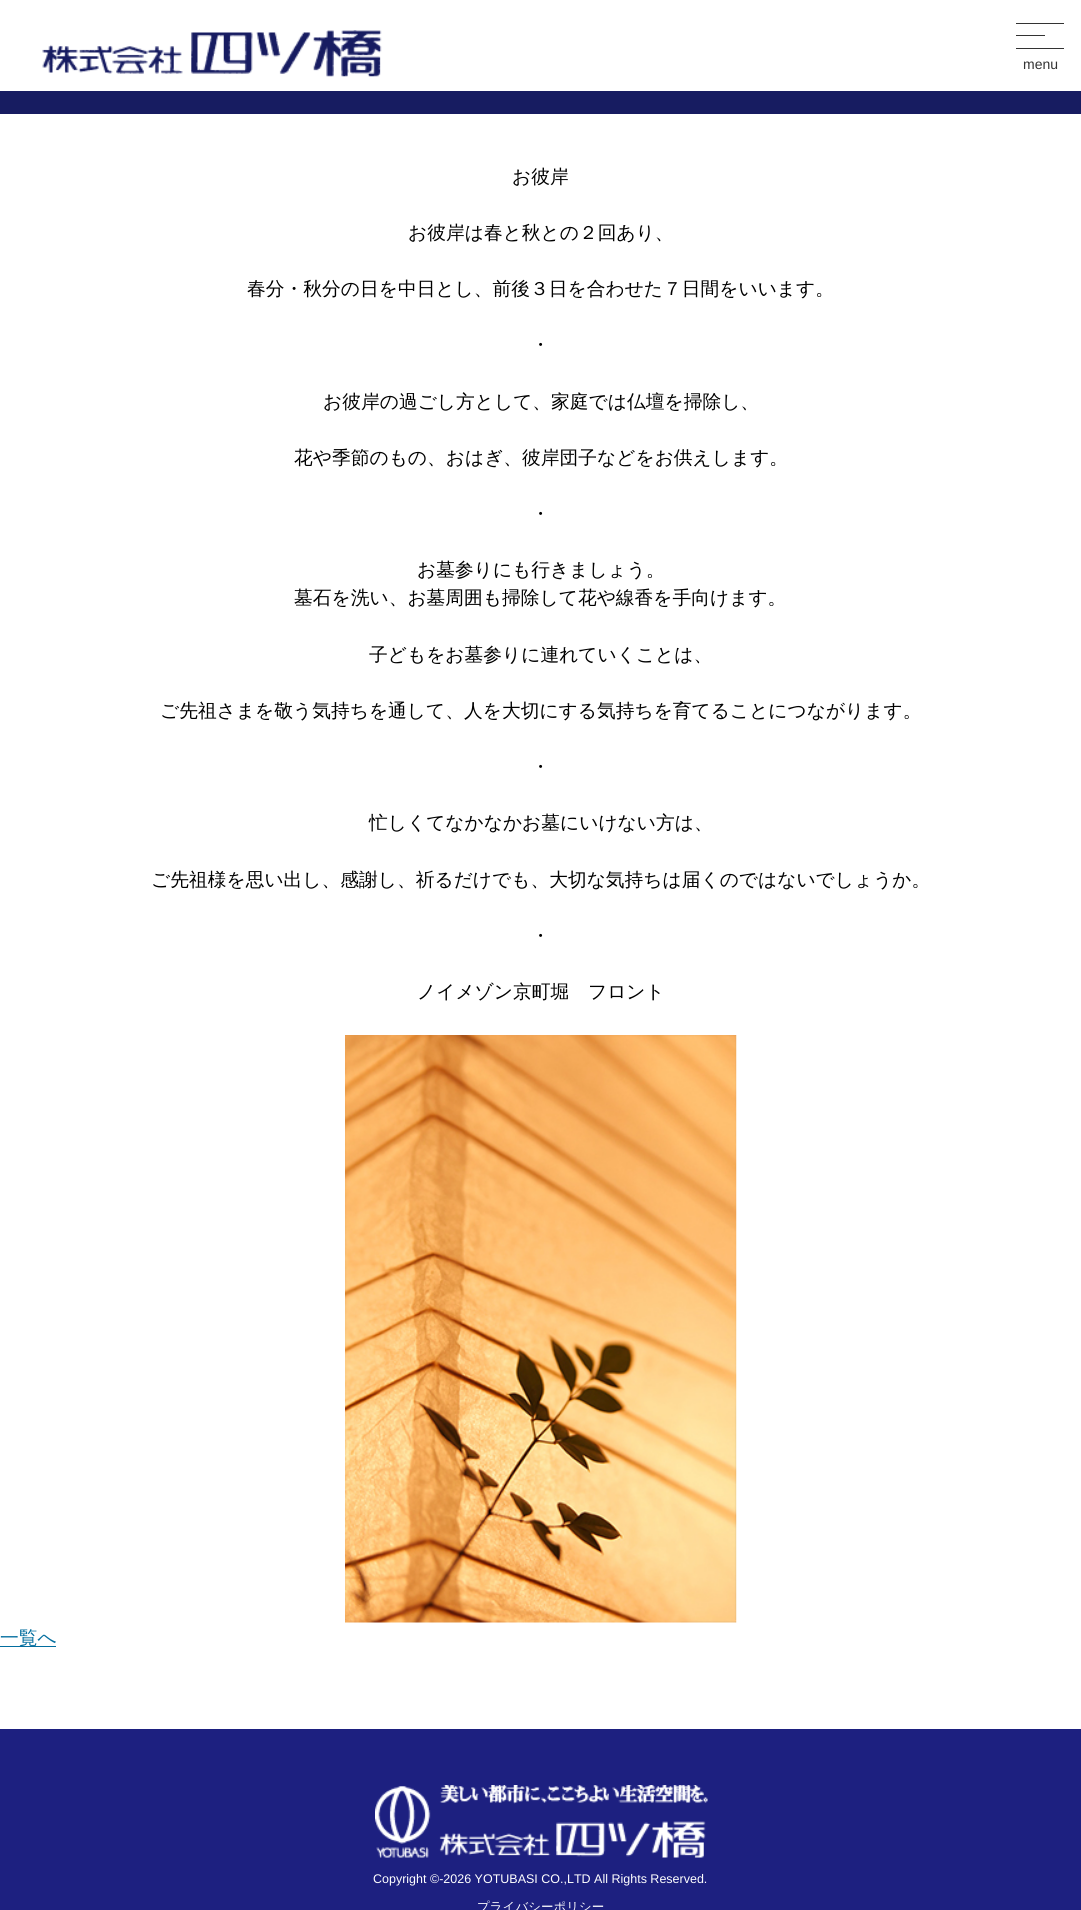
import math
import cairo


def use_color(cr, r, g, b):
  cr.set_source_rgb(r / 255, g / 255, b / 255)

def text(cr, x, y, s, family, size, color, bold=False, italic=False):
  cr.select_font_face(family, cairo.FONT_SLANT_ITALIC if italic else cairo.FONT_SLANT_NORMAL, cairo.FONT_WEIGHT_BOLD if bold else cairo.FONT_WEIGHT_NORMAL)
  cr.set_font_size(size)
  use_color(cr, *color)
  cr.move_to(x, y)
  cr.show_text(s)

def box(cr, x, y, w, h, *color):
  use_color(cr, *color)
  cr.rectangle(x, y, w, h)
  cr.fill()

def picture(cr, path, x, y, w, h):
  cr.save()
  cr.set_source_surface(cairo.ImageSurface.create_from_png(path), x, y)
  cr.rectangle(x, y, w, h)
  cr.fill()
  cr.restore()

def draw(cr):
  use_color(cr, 255, 255, 255)
  cr.paint()
  box(cr, 0, 91, 1081, 23, 23, 28, 97)
  picture(cr, "img_01.png", 42, 30, 340, 47)
  box(cr, 1016, 23, 48, 1, 51, 51, 51)
  box(cr, 1016, 35, 29, 1, 51, 51, 51)
  box(cr, 1016, 48, 48, 1, 51, 51, 51)
  picture(cr, "img_02.png", 345, 1035, 392, 588)
  box(cr, 0, 1646, 56, 1, 3, 110, 159)
  box(cr, 0, 1729, 1081, 181, 29, 32, 128)
  picture(cr, "img_03.png", 375, 1785, 333, 73)
  text(cr, 1023, 69, "menu", "Liberation Sans", 14, (51, 51, 51))
  text(cr, 512, 183, "お彼岸", "WenQuanYi Zen Hei Medium", 18.75, (0, 0, 0))
  text(cr, 408, 239, "お彼岸は春と秋との２回あり、", "WenQuanYi Zen Hei Medium", 18.75, (0, 0, 0))
  text(cr, 247, 295, "春分・秋分の日を中日とし、前後３日を合わせた７日間をいいます。", "WenQuanYi Zen Hei Medium", 18.75, (0, 0, 0))
  text(cr, 531, 351, "・", "WenQuanYi Zen Hei Medium", 18.75, (0, 0, 0))
  text(cr, 323, 408, "お彼岸の過ごし方として、家庭では仏壇を掃除し、", "WenQuanYi Zen Hei Medium", 18.75, (0, 0, 0))
  text(cr, 294, 464, "花や季節のもの、おはぎ、彼岸団子などをお供えします。", "WenQuanYi Zen Hei Medium", 18.75, (0, 0, 0))
  text(cr, 531, 520, "・", "WenQuanYi Zen Hei Medium", 18.75, (0, 0, 0))
  text(cr, 417, 576, "お墓参りにも行きましょう。", "WenQuanYi Zen Hei Medium", 18.75, (0, 0, 0))
  text(cr, 294, 604, "墓石を洗い、お墓周囲も掃除して花や線香を手向けます。", "WenQuanYi Zen Hei Medium", 18.75, (0, 0, 0))
  text(cr, 369, 661, "子どもをお墓参りに連れていくことは、", "WenQuanYi Zen Hei Medium", 18.75, (0, 0, 0))
  text(cr, 160, 717, "ご先祖さまを敬う気持ちを通して、人を大切にする気持ちを育てることにつながります。", "WenQuanYi Zen Hei Medium", 18.75, (0, 0, 0))
  text(cr, 531, 773, "・", "WenQuanYi Zen Hei Medium", 18.75, (0, 0, 0))
  text(cr, 369, 829, "忙しくてなかなかお墓にいけない方は、", "WenQuanYi Zen Hei Medium", 18.75, (0, 0, 0))
  text(cr, 151, 886, "ご先祖様を思い出し、感謝し、祈るだけでも、大切な気持ちは届くのではないでしょうか。", "WenQuanYi Zen Hei Medium", 18.75, (0, 0, 0))
  text(cr, 531, 942, "・", "WenQuanYi Zen Hei Medium", 18.75, (0, 0, 0))
  text(cr, 417, 998, "ノイメゾン京町堀　フロント", "WenQuanYi Zen Hei Medium", 18.75, (0, 0, 0))
  text(cr, 0, 1644, "一覧へ", "WenQuanYi Zen Hei Medium", 18.75, (3, 110, 159))
  text(cr, 373, 1883, "Copyright ©-2026 YOTUBASI CO.,LTD All Rights Reserved.", "Liberation Sans", 12.5, (255, 255, 255))
  text(cr, 477, 1911, "プライバシーポリシー", "WenQuanYi Zen Hei Medium", 12.5, (255, 255, 255))


surface = cairo.ImageSurface(cairo.FORMAT_RGB24, 1081, 1910)
cr = cairo.Context(surface)
options = cairo.FontOptions()
options.set_hint_metrics(cairo.HINT_METRICS_OFF)
options.set_hint_style(cairo.HINT_STYLE_NONE)
cr.set_font_options(options)
cr.set_miter_limit(4)
draw(cr)
surface.write_to_png("out.png")
